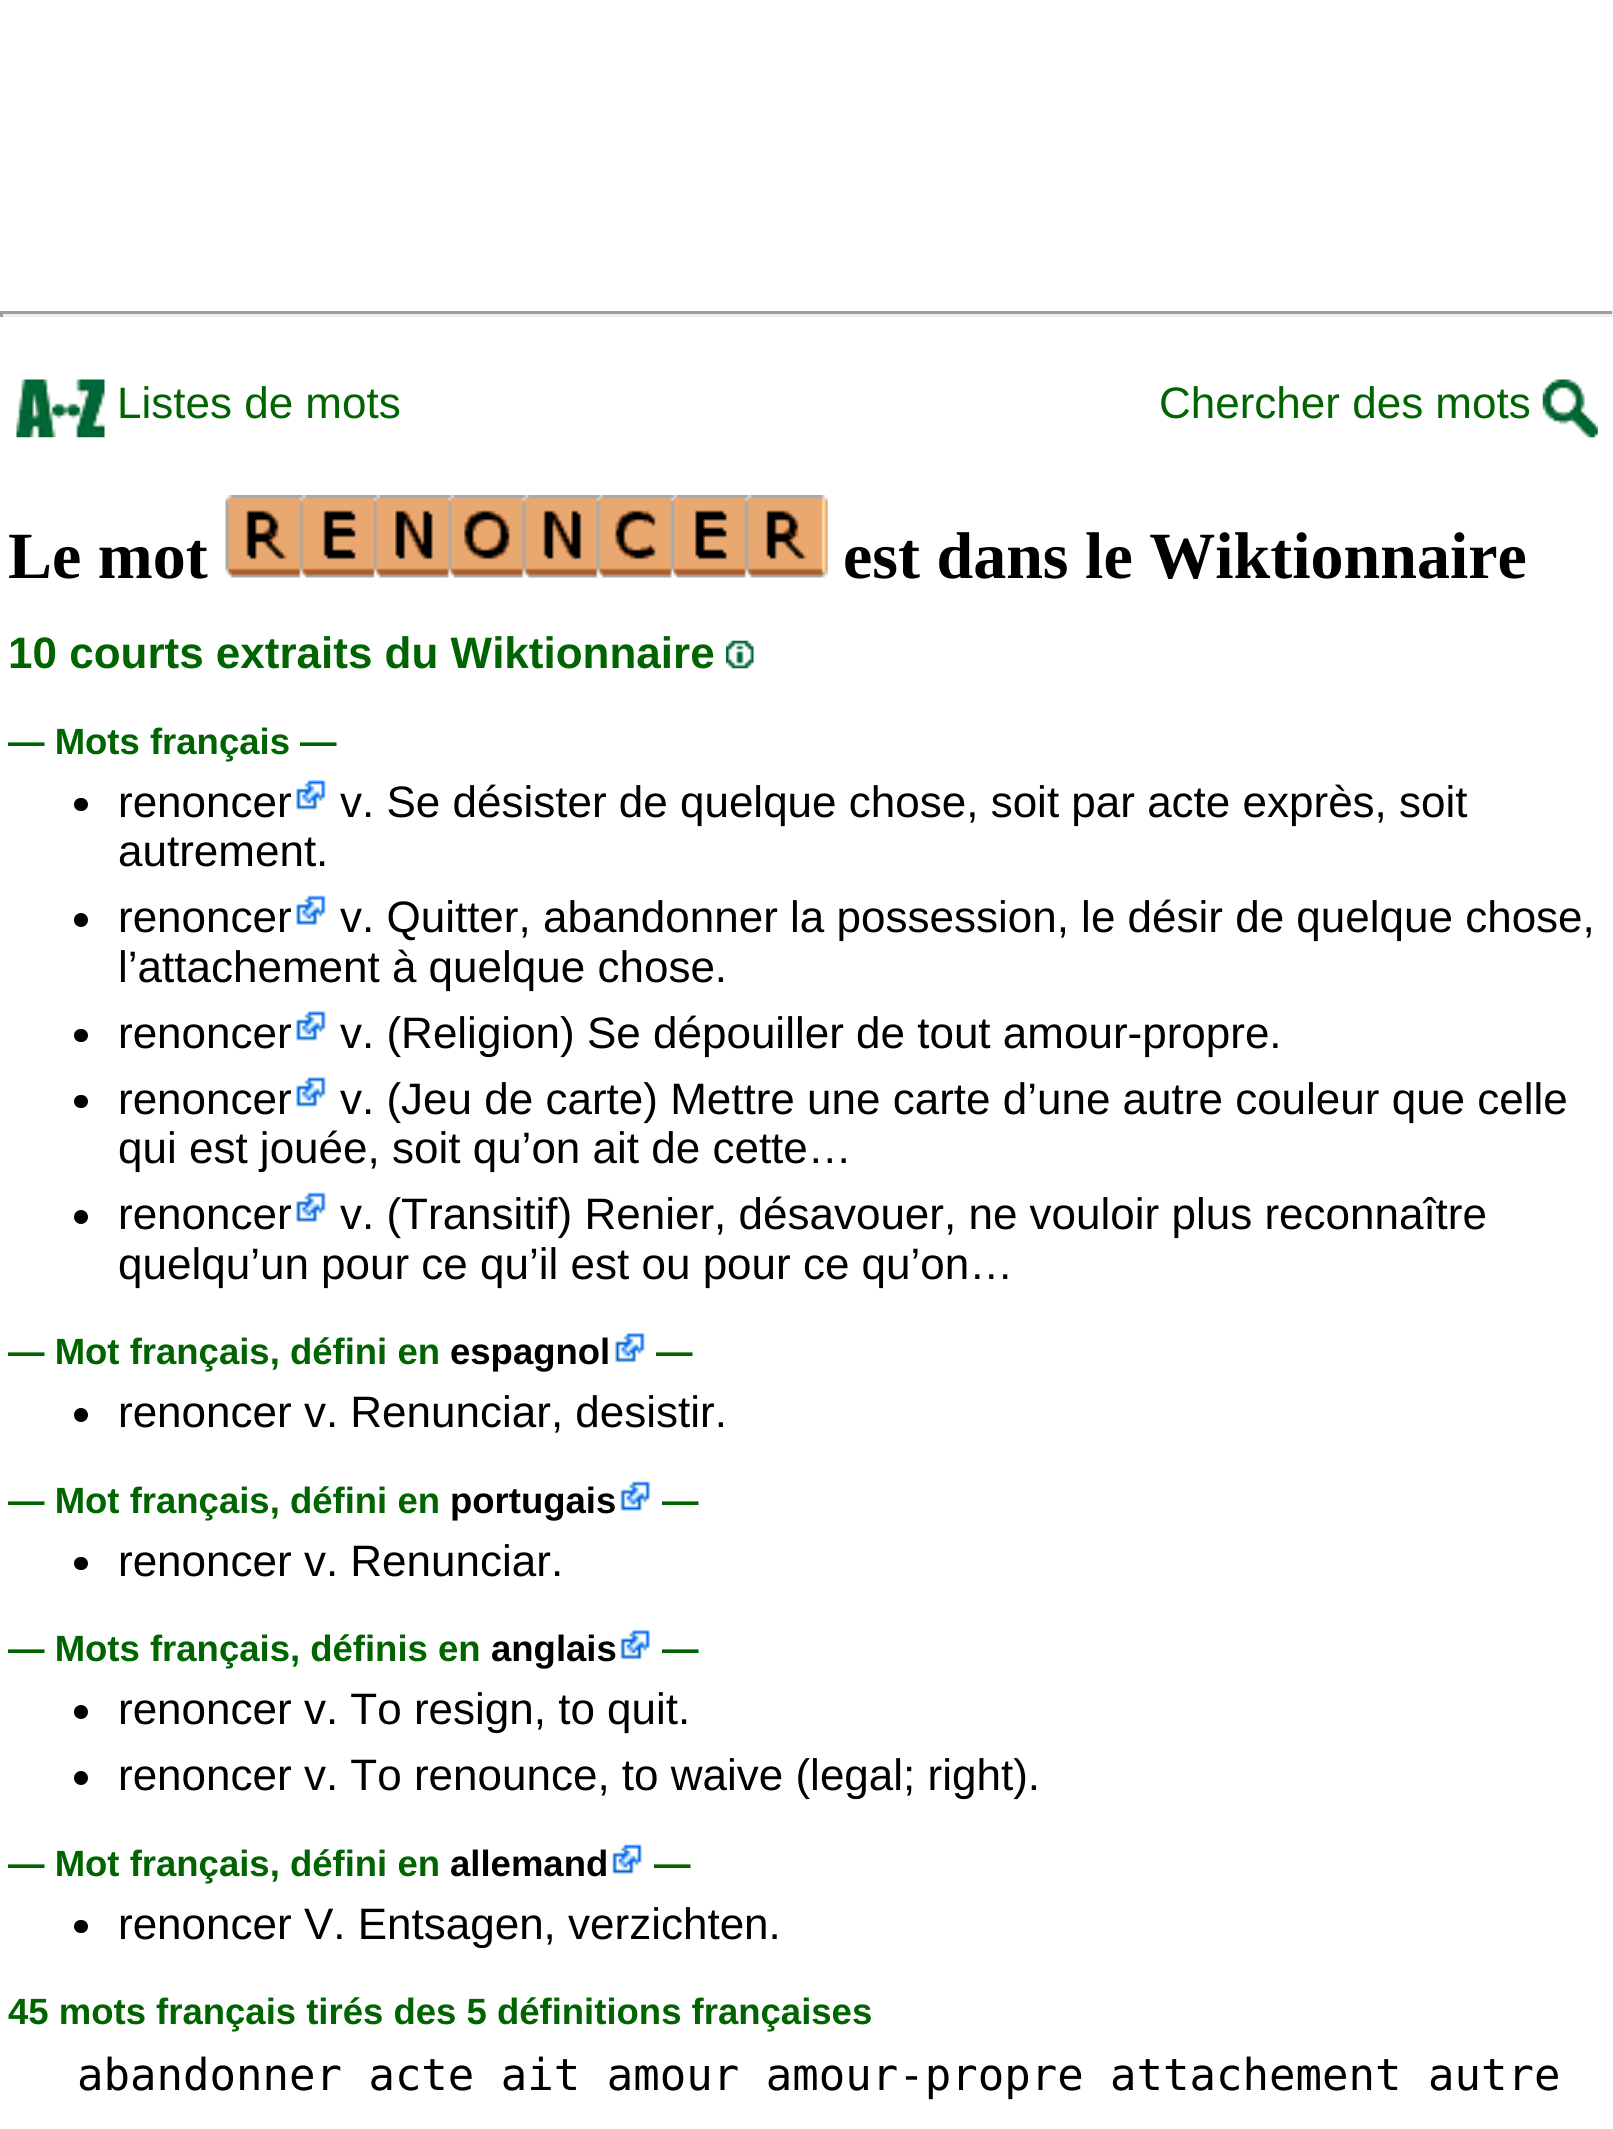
import math
import cairo


def use_color(cr, r, g, b):
  cr.set_source_rgb(r / 255, g / 255, b / 255)

def text(cr, x, y, s, family, size, color, bold=False, italic=False):
  cr.select_font_face(family, cairo.FONT_SLANT_ITALIC if italic else cairo.FONT_SLANT_NORMAL, cairo.FONT_WEIGHT_BOLD if bold else cairo.FONT_WEIGHT_NORMAL)
  cr.set_font_size(size)
  use_color(cr, *color)
  cr.move_to(x, y)
  cr.show_text(s)

def box(cr, x, y, w, h, *color):
  use_color(cr, *color)
  cr.rectangle(x, y, w, h)
  cr.fill()

def round_rect(cr, x, y, w, h, r):
  cr.new_sub_path()
  for i, (u, v) in enumerate([(x + w - r, y + h - r), (x + r, y + h - r), (x + r, y + r), (x + w - r, y + r)]):
    cr.arc(u, v, r, i * math.pi / 2, (i + 1) * math.pi / 2)
  cr.close_path()

def picture(cr, path, x, y, w, h):
  cr.save()
  cr.set_source_surface(cairo.ImageSurface.create_from_png(path), x, y)
  cr.rectangle(x, y, w, h)
  cr.fill()
  cr.restore()

def draw(cr):
  use_color(cr, 255, 255, 255)
  cr.paint()
  box(cr, 0, 311, 1613, 3, 159, 159, 159)
  box(cr, 1612, 311, 1, 6, 238, 238, 238)
  box(cr, 0, 314, 1613, 3, 238, 238, 238)
  box(cr, 0, 311, 3, 6, 159, 159, 159)
  picture(cr, "img_01.png", 16, 379, 89, 59)
  picture(cr, "img_02.png", 1542, 379, 56, 59)
  picture(cr, "img_03.png", 225, 495, 603, 83)
  picture(cr, "img_04.png", 726, 640, 28, 29)
  use_color(cr, 0, 0, 0)
  round_rect(cr, 74, 798, 14, 13, 6.5)
  cr.fill()
  picture(cr, "img_05.png", 296, 780, 30, 30)
  cr.arc(81, 920, 7, 0, 2 * math.pi)
  cr.fill()
  picture(cr, "img_06.png", 296, 895, 30, 30)
  round_rect(cr, 74, 1029, 14, 13, 6.5)
  cr.fill()
  picture(cr, "img_05.png", 296, 1011, 30, 30)
  round_rect(cr, 74, 1095, 14, 13, 6.5)
  cr.fill()
  picture(cr, "img_05.png", 296, 1077, 30, 30)
  cr.arc(81, 1217, 7, 0, 2 * math.pi)
  cr.fill()
  picture(cr, "img_06.png", 296, 1192, 30, 30)
  picture(cr, "img_07.png", 615, 1333, 30, 30)
  cr.arc(81, 1415, 7, 0, 2 * math.pi)
  cr.fill()
  picture(cr, "img_08.png", 620, 1481, 30, 30)
  round_rect(cr, 74, 1557, 14, 13, 6.5)
  cr.fill()
  picture(cr, "img_09.png", 620, 1630, 30, 30)
  cr.arc(81, 1712, 7, 0, 2 * math.pi)
  cr.fill()
  cr.arc(81, 1778, 7, 0, 2 * math.pi)
  cr.fill()
  picture(cr, "img_10.png", 612, 1844, 30, 30)
  round_rect(cr, 74, 1920, 14, 13, 6.5)
  cr.fill()
  text(cr, 117, 418, "Listes de mots", "Liberation Sans", 44, (0, 100, 0))
  text(cr, 1159, 418, "Chercher des mots", "Liberation Sans", 44, (0, 100, 0))
  text(cr, 8, 578, "Le mot", "Liberation Serif", 66, (0, 0, 0), bold=True)
  text(cr, 843, 578, "est dans le Wiktionnaire", "Liberation Serif", 66, (0, 0, 0), bold=True)
  text(cr, 8, 668, "10 courts extraits du Wiktionnaire", "Liberation Sans", 44, (0, 100, 0), bold=True)
  text(cr, 8, 754, "— Mots français —", "Liberation Sans", 36.5, (0, 100, 0), bold=True)
  text(cr, 118, 817, "renoncer", "Liberation Sans", 44, (0, 0, 0))
  text(cr, 340, 817, "v. Se désister de quelque chose, soit par acte exprès, soit", "Liberation Sans", 44, (0, 0, 0))
  text(cr, 118, 866, "autrement.", "Liberation Sans", 44, (0, 0, 0))
  text(cr, 118, 932, "renoncer", "Liberation Sans", 44, (0, 0, 0))
  text(cr, 340, 932, "v. Quitter, abandonner la possession, le désir de quelque chose,", "Liberation Sans", 44, (0, 0, 0))
  text(cr, 118, 982, "l’attachement à quelque chose.", "Liberation Sans", 44, (0, 0, 0))
  text(cr, 118, 1048, "renoncer", "Liberation Sans", 44, (0, 0, 0))
  text(cr, 340, 1048, "v. (Religion) Se dépouiller de tout amour-propre.", "Liberation Sans", 44, (0, 0, 0))
  text(cr, 118, 1114, "renoncer", "Liberation Sans", 44, (0, 0, 0))
  text(cr, 340, 1114, "v. (Jeu de carte) Mettre une carte d’une autre couleur que celle", "Liberation Sans", 44, (0, 0, 0))
  text(cr, 118, 1163, "qui est jouée, soit qu’on ait de cette…", "Liberation Sans", 44, (0, 0, 0))
  text(cr, 118, 1229, "renoncer", "Liberation Sans", 44, (0, 0, 0))
  text(cr, 340, 1229, "v. (Transitif) Renier, désavouer, ne vouloir plus reconnaître", "Liberation Sans", 44, (0, 0, 0))
  text(cr, 118, 1279, "quelqu’un pour ce qu’il est ou pour ce qu’on…", "Liberation Sans", 44, (0, 0, 0))
  text(cr, 8, 1364, "— Mot français, défini en", "Liberation Sans", 36.5, (0, 100, 0), bold=True)
  text(cr, 450, 1364, "espagnol", "Liberation Sans", 36.5, (0, 0, 0), bold=True)
  text(cr, 656, 1364, "—", "Liberation Sans", 36.5, (0, 100, 0), bold=True)
  text(cr, 118, 1427, "renoncer v. Renunciar, desistir.", "Liberation Sans", 44, (0, 0, 0))
  text(cr, 8, 1513, "— Mot français, défini en", "Liberation Sans", 36.5, (0, 100, 0), bold=True)
  text(cr, 450, 1513, "portugais", "Liberation Sans", 36.5, (0, 0, 0), bold=True)
  text(cr, 662, 1513, "—", "Liberation Sans", 36.5, (0, 100, 0), bold=True)
  text(cr, 118, 1576, "renoncer v. Renunciar.", "Liberation Sans", 44, (0, 0, 0))
  text(cr, 8, 1661, "— Mots français, définis en", "Liberation Sans", 36.5, (0, 100, 0), bold=True)
  text(cr, 491, 1661, "anglais", "Liberation Sans", 36.5, (0, 0, 0), bold=True)
  text(cr, 662, 1661, "—", "Liberation Sans", 36.5, (0, 100, 0), bold=True)
  text(cr, 118, 1724, "renoncer v. To resign, to quit.", "Liberation Sans", 44, (0, 0, 0))
  text(cr, 118, 1790, "renoncer v. To renounce, to waive (legal; right).", "Liberation Sans", 44, (0, 0, 0))
  text(cr, 8, 1876, "— Mot français, défini en", "Liberation Sans", 36.5, (0, 100, 0), bold=True)
  text(cr, 450, 1876, "allemand", "Liberation Sans", 36.5, (0, 0, 0), bold=True)
  text(cr, 654, 1876, "—", "Liberation Sans", 36.5, (0, 100, 0), bold=True)
  text(cr, 118, 1939, "renoncer V. Entsagen, verzichten.", "Liberation Sans", 44, (0, 0, 0))
  text(cr, 8, 2024, "45 mots français tirés des 5 définitions françaises", "Liberation Sans", 36.5, (0, 100, 0), bold=True)
  text(cr, 77, 2090, "abandonner acte ait amour amour-propre attachement autre", "DejaVu Sans Mono", 44, (0, 0, 0))


surface = cairo.ImageSurface(cairo.FORMAT_RGB24, 1613, 2129)
cr = cairo.Context(surface)
options = cairo.FontOptions()
options.set_hint_metrics(cairo.HINT_METRICS_OFF)
options.set_hint_style(cairo.HINT_STYLE_NONE)
cr.set_font_options(options)
cr.set_miter_limit(4)
draw(cr)
surface.write_to_png("out.png")
